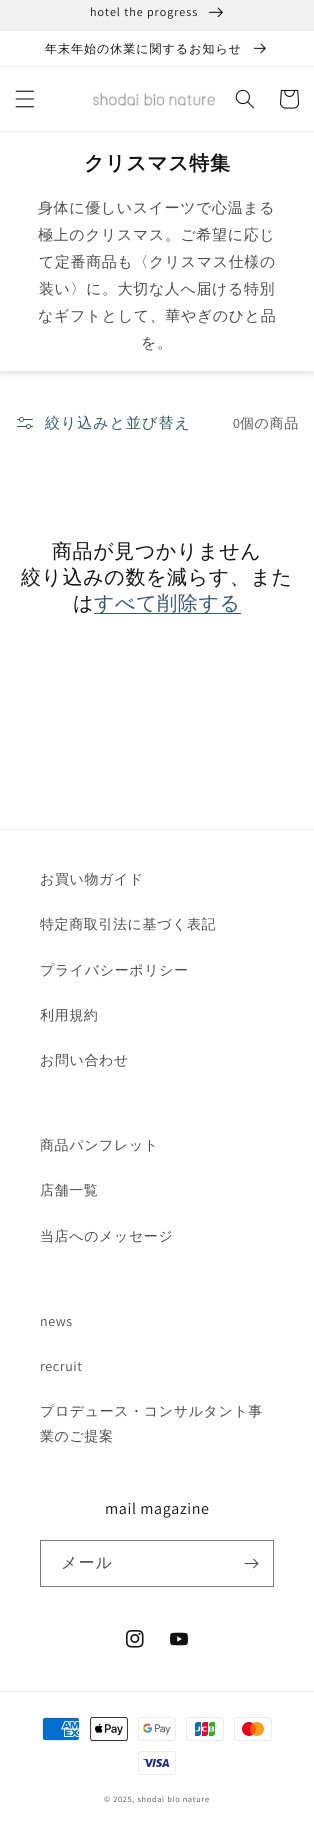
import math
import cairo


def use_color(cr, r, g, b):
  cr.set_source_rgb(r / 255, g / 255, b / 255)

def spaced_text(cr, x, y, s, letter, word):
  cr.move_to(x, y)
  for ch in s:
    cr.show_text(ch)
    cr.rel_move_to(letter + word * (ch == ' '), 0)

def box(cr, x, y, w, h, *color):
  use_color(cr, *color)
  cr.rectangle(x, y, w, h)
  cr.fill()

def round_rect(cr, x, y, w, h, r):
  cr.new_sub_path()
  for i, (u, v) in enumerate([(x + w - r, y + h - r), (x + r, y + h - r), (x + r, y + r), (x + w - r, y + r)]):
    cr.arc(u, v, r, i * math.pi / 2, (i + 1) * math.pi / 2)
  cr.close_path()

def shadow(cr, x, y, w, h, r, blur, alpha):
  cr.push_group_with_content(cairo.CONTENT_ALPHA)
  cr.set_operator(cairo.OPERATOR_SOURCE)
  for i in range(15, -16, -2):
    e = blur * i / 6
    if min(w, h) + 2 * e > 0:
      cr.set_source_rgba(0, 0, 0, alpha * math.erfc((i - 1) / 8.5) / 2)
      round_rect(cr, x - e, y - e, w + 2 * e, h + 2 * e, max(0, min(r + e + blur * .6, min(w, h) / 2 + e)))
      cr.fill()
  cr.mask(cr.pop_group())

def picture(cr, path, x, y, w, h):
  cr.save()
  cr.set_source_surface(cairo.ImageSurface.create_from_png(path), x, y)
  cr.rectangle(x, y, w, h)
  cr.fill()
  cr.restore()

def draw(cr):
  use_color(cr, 255, 255, 255)
  cr.paint()
  box(cr, 0, 30, 314, 1, 236, 236, 236)
  box(cr, 0, 0, 314, 30, 241, 241, 241)
  picture(cr, "img_01.png", 209, 7, 14, 10)
  box(cr, 0, 66, 314, 1, 236, 236, 236)
  picture(cr, "img_02.png", 254, 43, 12, 11)
  box(cr, 0, 131, 314, 1, 235, 235, 235)
  picture(cr, "img_03.png", 15, 90, 20, 18)
  picture(cr, "img_04.png", 93, 92, 123, 14)
  picture(cr, "img_05.png", 235, 89, 19, 20)
  picture(cr, "img_06.png", 280, 90, 20, 19)
  cr.save()
  cr.rectangle(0, 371, 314, 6)
  cr.clip()
  use_color(cr, 18, 18, 18)
  shadow(cr, 0, 198, 314, 177, 0, 2.5, 0.1)
  cr.restore()
  picture(cr, "img_07.png", 17, 417, 16, 12)
  box(cr, 94, 613, 147, 1, 53, 88, 113)
  box(cr, 0, 829, 314, 1, 236, 236, 236)
  cr.rectangle(40.5, 1540.5, 233, 46)
  use_color(cr, 125, 125, 125)
  cr.set_line_width(1)
  cr.stroke()
  picture(cr, "img_08.png", 244, 1558, 15, 11)
  picture(cr, "img_09.png", 126, 1630, 18, 18)
  picture(cr, "img_10.png", 170, 1632, 18, 14)
  box(cr, 0, 1691, 314, 1, 236, 236, 236)
  picture(cr, "img_11.png", 42, 1717, 38, 24)
  picture(cr, "img_12.png", 90, 1717, 38, 24)
  picture(cr, "img_13.png", 138, 1717, 38, 24)
  picture(cr, "img_14.png", 186, 1717, 38, 24)
  picture(cr, "img_15.png", 234, 1717, 38, 24)
  picture(cr, "img_16.png", 138, 1751, 38, 24)
  cr.select_font_face("Assistant")
  cr.set_font_size(12)
  use_color(cr, 18, 18, 18)
  spaced_text(cr, 90, 16, "hotel the progress", 1, 0)
  cr.select_font_face("WenQuanYi Zen Hei Medium")
  spaced_text(cr, 45, 53, "年末年始の休業に関するお知らせ", 1, 0)
  cr.select_font_face("WenQuanYi Zen Hei", cairo.FONT_SLANT_NORMAL, cairo.FONT_WEIGHT_BOLD)
  cr.set_font_size(20)
  spaced_text(cr, 84, 170, "クリスマス特集", 0.6, 0)
  cr.select_font_face("WenQuanYi Zen Hei Medium")
  cr.set_font_size(15)
  use_color(cr, 77, 77, 77)
  spaced_text(cr, 38, 213, "身体に優しいスイーツで心温まる", 0.6, 0)
  spaced_text(cr, 38, 240, "極上のクリスマス。ご希望に応じ", 0.6, 0)
  spaced_text(cr, 39, 267, "て定番商品も〈クリスマス仕様の", 0.6, 0)
  spaced_text(cr, 39, 294, "装い〉に。大切な人へ届ける特別", 0.6, 0)
  spaced_text(cr, 38, 321, "なギフトとして、華やぎのひと品", 0.6, 0)
  spaced_text(cr, 141, 348, "を。", 0.6, 0)
  use_color(cr, 53, 88, 113)
  spaced_text(cr, 45, 428, "絞り込みと並び替え", 1, 0)
  cr.select_font_face("Assistant")
  cr.set_font_size(14)
  use_color(cr, 89, 89, 89)
  spaced_text(cr, 233, 428, "0", 0.6, 0)
  cr.select_font_face("WenQuanYi Zen Hei Medium")
  spaced_text(cr, 240, 428, "個の商品", 0.6, 0)
  cr.set_font_size(20)
  use_color(cr, 18, 18, 18)
  spaced_text(cr, 52, 558, "商品が見つかりません", 0.6, 0)
  spaced_text(cr, 21, 584, "絞り込みの数を減らす、また", 0.6, 0)
  spaced_text(cr, 73, 610, "は", 0.6, 0)
  use_color(cr, 53, 88, 113)
  spaced_text(cr, 94, 610, "すべて削除する", 0.6, 0)
  cr.set_font_size(14)
  use_color(cr, 77, 77, 77)
  spaced_text(cr, 40, 884, "お買い物ガイド", 0.6, 0)
  spaced_text(cr, 40, 929, "特定商取引法に基づく表記", 0.6, 0)
  spaced_text(cr, 40, 975, "プライバシーポリシー", 0.6, 0)
  spaced_text(cr, 40, 1020, "利用規約", 0.6, 0)
  spaced_text(cr, 40, 1065, "お問い合わせ", 0.6, 0)
  spaced_text(cr, 40, 1150, "商品パンフレット", 0.6, 0)
  spaced_text(cr, 40, 1195, "店舗一覧", 0.6, 0)
  spaced_text(cr, 40, 1241, "当店へのメッセージ", 0.6, 0)
  cr.select_font_face("Assistant")
  spaced_text(cr, 40, 1326, "news", 0.6, 0)
  spaced_text(cr, 40, 1371, "recruit", 0.6, 0)
  cr.select_font_face("WenQuanYi Zen Hei Medium")
  spaced_text(cr, 40, 1416, "プロデュース・コンサルタント事", 0.6, 0)
  spaced_text(cr, 40, 1441, "業のご提案", 0.6, 0)
  cr.select_font_face("Assistant")
  cr.set_font_size(16)
  use_color(cr, 18, 18, 18)
  spaced_text(cr, 105, 1514, "mail magazine", 0.6, 0)
  cr.select_font_face("WenQuanYi Zen Hei Medium")
  use_color(cr, 77, 77, 77)
  spaced_text(cr, 61, 1568, "メール", 1, 0)
  cr.select_font_face("Assistant")
  cr.set_font_size(8.3)
  spaced_text(cr, 104, 1802, "© 2025, shodai bio nature", 0.7, 0)


surface = cairo.ImageSurface(cairo.FORMAT_RGB24, 314, 1828)
cr = cairo.Context(surface)
options = cairo.FontOptions()
options.set_hint_metrics(cairo.HINT_METRICS_OFF)
options.set_hint_style(cairo.HINT_STYLE_NONE)
cr.set_font_options(options)
cr.set_miter_limit(4)
draw(cr)
surface.write_to_png("out.png")
